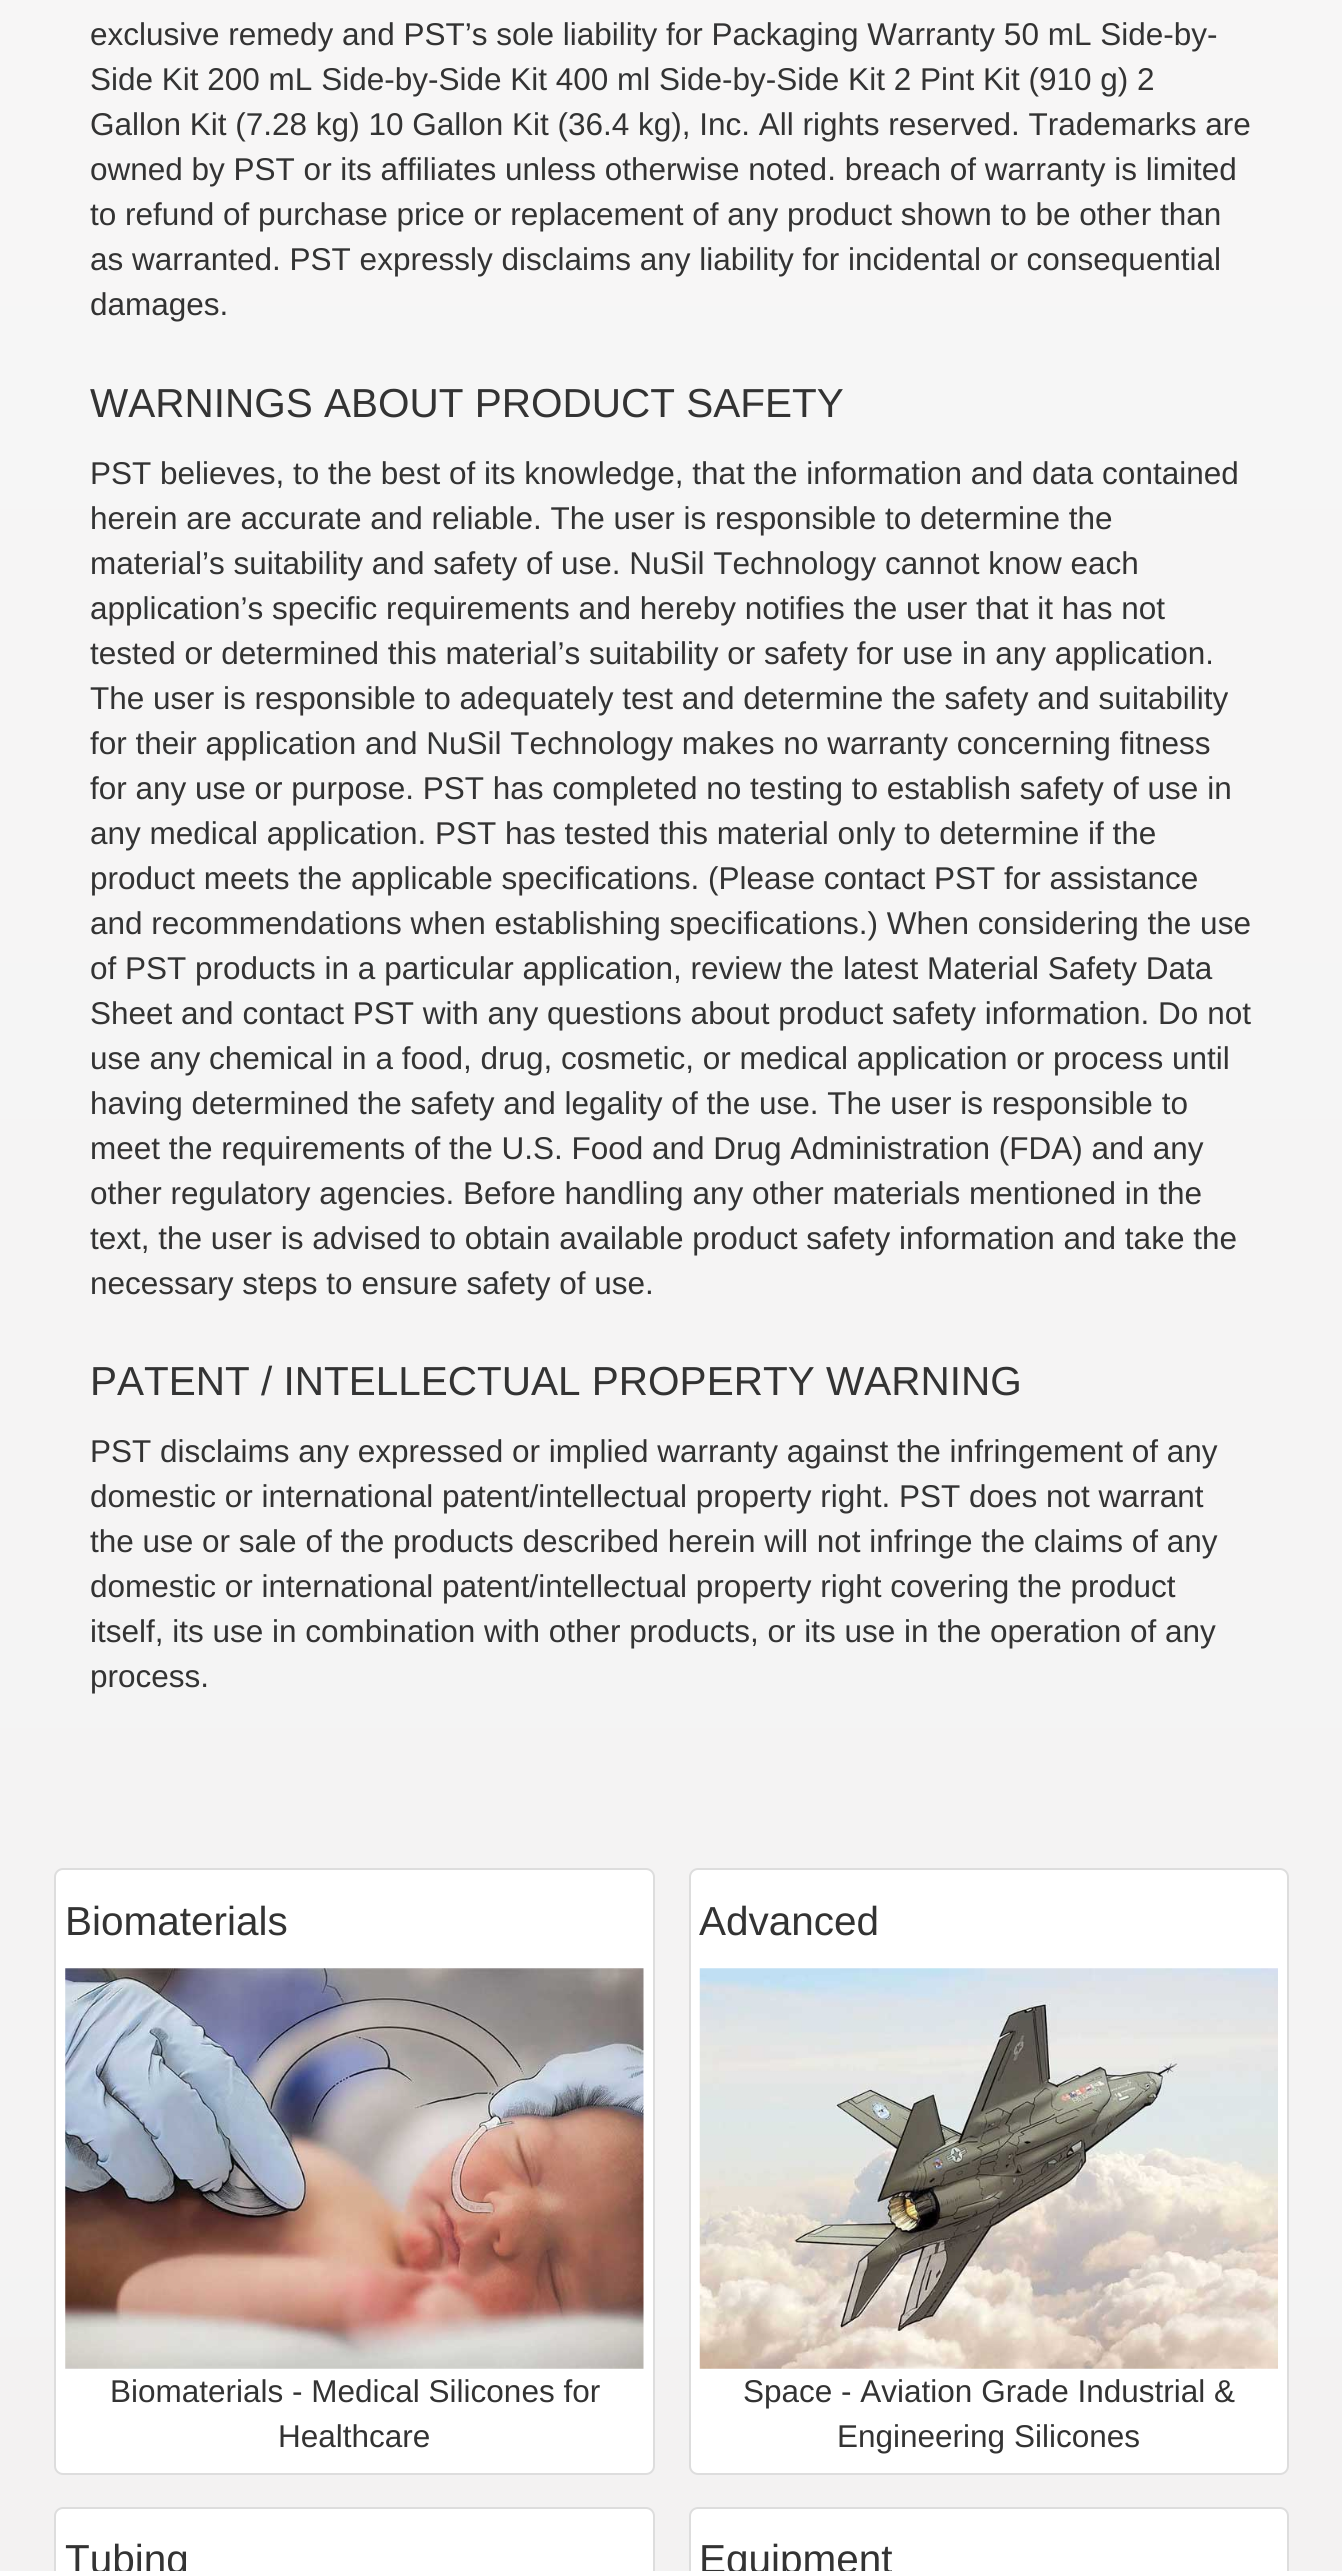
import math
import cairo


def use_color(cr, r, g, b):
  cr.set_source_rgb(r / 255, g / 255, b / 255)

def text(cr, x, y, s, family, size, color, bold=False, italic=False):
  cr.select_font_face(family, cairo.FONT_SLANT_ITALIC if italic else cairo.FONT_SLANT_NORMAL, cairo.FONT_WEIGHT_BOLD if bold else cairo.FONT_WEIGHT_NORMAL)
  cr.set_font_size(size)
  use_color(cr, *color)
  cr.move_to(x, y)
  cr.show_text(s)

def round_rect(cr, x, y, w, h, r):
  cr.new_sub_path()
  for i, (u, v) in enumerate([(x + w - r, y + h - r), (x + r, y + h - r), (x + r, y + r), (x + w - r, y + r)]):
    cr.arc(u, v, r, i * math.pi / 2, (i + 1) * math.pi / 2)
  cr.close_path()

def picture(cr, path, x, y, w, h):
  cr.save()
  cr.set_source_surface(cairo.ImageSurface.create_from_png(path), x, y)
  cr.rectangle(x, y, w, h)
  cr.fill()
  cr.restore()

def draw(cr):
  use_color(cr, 255, 255, 255)
  cr.paint()
  gradient = cairo.LinearGradient(672, -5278, 672, 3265)
  gradient.add_color_stop_rgba(0, 1, 1, 1, 1)
  gradient.add_color_stop_rgba(1, 0.949, 0.945, 0.945, 1)
  cr.set_source(gradient)
  cr.rectangle(0, 0, 1342, 2571)
  cr.fill()
  use_color(cr, 255, 255, 255)
  round_rect(cr, 55, 1869, 599, 605, 8)
  cr.fill_preserve()
  use_color(cr, 221, 221, 221)
  cr.stroke()
  picture(cr, "img_01.png", 65, 1968, 579, 401)
  use_color(cr, 255, 255, 255)
  round_rect(cr, 690, 1869, 598, 605, 8)
  cr.fill_preserve()
  use_color(cr, 221, 221, 221)
  cr.stroke()
  picture(cr, "img_02.png", 699, 1968, 579, 401)
  use_color(cr, 255, 255, 255)
  round_rect(cr, 55, 2508, 599, 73, 8)
  cr.fill_preserve()
  use_color(cr, 221, 221, 221)
  cr.stroke()
  use_color(cr, 255, 255, 255)
  round_rect(cr, 690, 2508, 598, 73, 8)
  cr.fill_preserve()
  use_color(cr, 221, 221, 221)
  cr.stroke()
  text(cr, 90, 45, "exclusive remedy and PST’s sole liability for Packaging Warranty 50 mL Side-by-", "Liberation Sans", 31.5, (51, 51, 51))
  text(cr, 90, 90, "Side Kit 200 mL Side-by-Side Kit 400 ml Side-by-Side Kit 2 Pint Kit (910 g) 2", "Liberation Sans", 31.5, (51, 51, 51))
  text(cr, 90, 135, "Gallon Kit (7.28 kg) 10 Gallon Kit (36.4 kg), Inc. All rights reserved. Trademarks are", "Liberation Sans", 31.5, (51, 51, 51))
  text(cr, 90, 180, "owned by PST or its affiliates unless otherwise noted. breach of warranty is limited", "Liberation Sans", 31.5, (51, 51, 51))
  text(cr, 90, 225, "to refund of purchase price or replacement of any product shown to be other than", "Liberation Sans", 31.5, (51, 51, 51))
  text(cr, 90, 270, "as warranted. PST expressly disclaims any liability for incidental or consequential", "Liberation Sans", 31.5, (51, 51, 51))
  text(cr, 90, 315, "damages.", "Liberation Sans", 31.5, (51, 51, 51))
  text(cr, 90, 417, "WARNINGS ABOUT PRODUCT SAFETY", "Liberation Sans", 40.5, (51, 51, 51))
  text(cr, 90, 484, "PST believes, to the best of its knowledge, that the information and data contained", "Liberation Sans", 31.5, (51, 51, 51))
  text(cr, 90, 529, "herein are accurate and reliable. The user is responsible to determine the", "Liberation Sans", 31.5, (51, 51, 51))
  text(cr, 90, 574, "material’s suitability and safety of use. NuSil Technology cannot know each", "Liberation Sans", 31.5, (51, 51, 51))
  text(cr, 90, 619, "application’s specific requirements and hereby notifies the user that it has not", "Liberation Sans", 31.5, (51, 51, 51))
  text(cr, 90, 664, "tested or determined this material’s suitability or safety for use in any application.", "Liberation Sans", 31.5, (51, 51, 51))
  text(cr, 90, 709, "The user is responsible to adequately test and determine the safety and suitability", "Liberation Sans", 31.5, (51, 51, 51))
  text(cr, 90, 754, "for their application and NuSil Technology makes no warranty concerning fitness", "Liberation Sans", 31.5, (51, 51, 51))
  text(cr, 90, 799, "for any use or purpose. PST has completed no testing to establish safety of use in", "Liberation Sans", 31.5, (51, 51, 51))
  text(cr, 90, 844, "any medical application. PST has tested this material only to determine if the", "Liberation Sans", 31.5, (51, 51, 51))
  text(cr, 90, 889, "product meets the applicable specifications. (Please contact PST for assistance", "Liberation Sans", 31.5, (51, 51, 51))
  text(cr, 90, 934, "and recommendations when establishing specifications.) When considering the use", "Liberation Sans", 31.5, (51, 51, 51))
  text(cr, 90, 979, "of PST products in a particular application, review the latest Material Safety Data", "Liberation Sans", 31.5, (51, 51, 51))
  text(cr, 90, 1024, "Sheet and contact PST with any questions about product safety information. Do not", "Liberation Sans", 31.5, (51, 51, 51))
  text(cr, 90, 1069, "use any chemical in a food, drug, cosmetic, or medical application or process until", "Liberation Sans", 31.5, (51, 51, 51))
  text(cr, 90, 1114, "having determined the safety and legality of the use. The user is responsible to", "Liberation Sans", 31.5, (51, 51, 51))
  text(cr, 90, 1159, "meet the requirements of the U.S. Food and Drug Administration (FDA) and any", "Liberation Sans", 31.5, (51, 51, 51))
  text(cr, 90, 1204, "other regulatory agencies. Before handling any other materials mentioned in the", "Liberation Sans", 31.5, (51, 51, 51))
  text(cr, 90, 1249, "text, the user is advised to obtain available product safety information and take the", "Liberation Sans", 31.5, (51, 51, 51))
  text(cr, 90, 1294, "necessary steps to ensure safety of use.", "Liberation Sans", 31.5, (51, 51, 51))
  text(cr, 90, 1395, "PATENT / INTELLECTUAL PROPERTY WARNING", "Liberation Sans", 40.5, (51, 51, 51))
  text(cr, 90, 1462, "PST disclaims any expressed or implied warranty against the infringement of any", "Liberation Sans", 31.5, (51, 51, 51))
  text(cr, 90, 1507, "domestic or international patent/intellectual property right. PST does not warrant", "Liberation Sans", 31.5, (51, 51, 51))
  text(cr, 90, 1552, "the use or sale of the products described herein will not infringe the claims of any", "Liberation Sans", 31.5, (51, 51, 51))
  text(cr, 90, 1597, "domestic or international patent/intellectual property right covering the product", "Liberation Sans", 31.5, (51, 51, 51))
  text(cr, 90, 1642, "itself, its use in combination with other products, or its use in the operation of any", "Liberation Sans", 31.5, (51, 51, 51))
  text(cr, 90, 1687, "process.", "Liberation Sans", 31.5, (51, 51, 51))
  text(cr, 65, 1935, "Biomaterials", "Liberation Sans", 40.5, (51, 51, 51))
  text(cr, 110, 2402, "Biomaterials - Medical Silicones for", "Liberation Sans", 31.5, (51, 51, 51))
  text(cr, 278, 2447, "Healthcare", "Liberation Sans", 31.5, (51, 51, 51))
  text(cr, 699, 1935, "Advanced", "Liberation Sans", 40.5, (51, 51, 51))
  text(cr, 743, 2402, "Space - Aviation Grade Industrial &", "Liberation Sans", 31.5, (51, 51, 51))
  text(cr, 837, 2447, "Engineering Silicones", "Liberation Sans", 31.5, (51, 51, 51))
  text(cr, 65, 2573, "Tubing", "Liberation Sans", 40.5, (51, 51, 51))
  text(cr, 699, 2573, "Equipment", "Liberation Sans", 40.5, (51, 51, 51))


surface = cairo.ImageSurface(cairo.FORMAT_RGB24, 1342, 2571)
cr = cairo.Context(surface)
options = cairo.FontOptions()
options.set_hint_metrics(cairo.HINT_METRICS_OFF)
options.set_hint_style(cairo.HINT_STYLE_NONE)
cr.set_font_options(options)
cr.set_miter_limit(4)
draw(cr)
surface.write_to_png("out.png")
